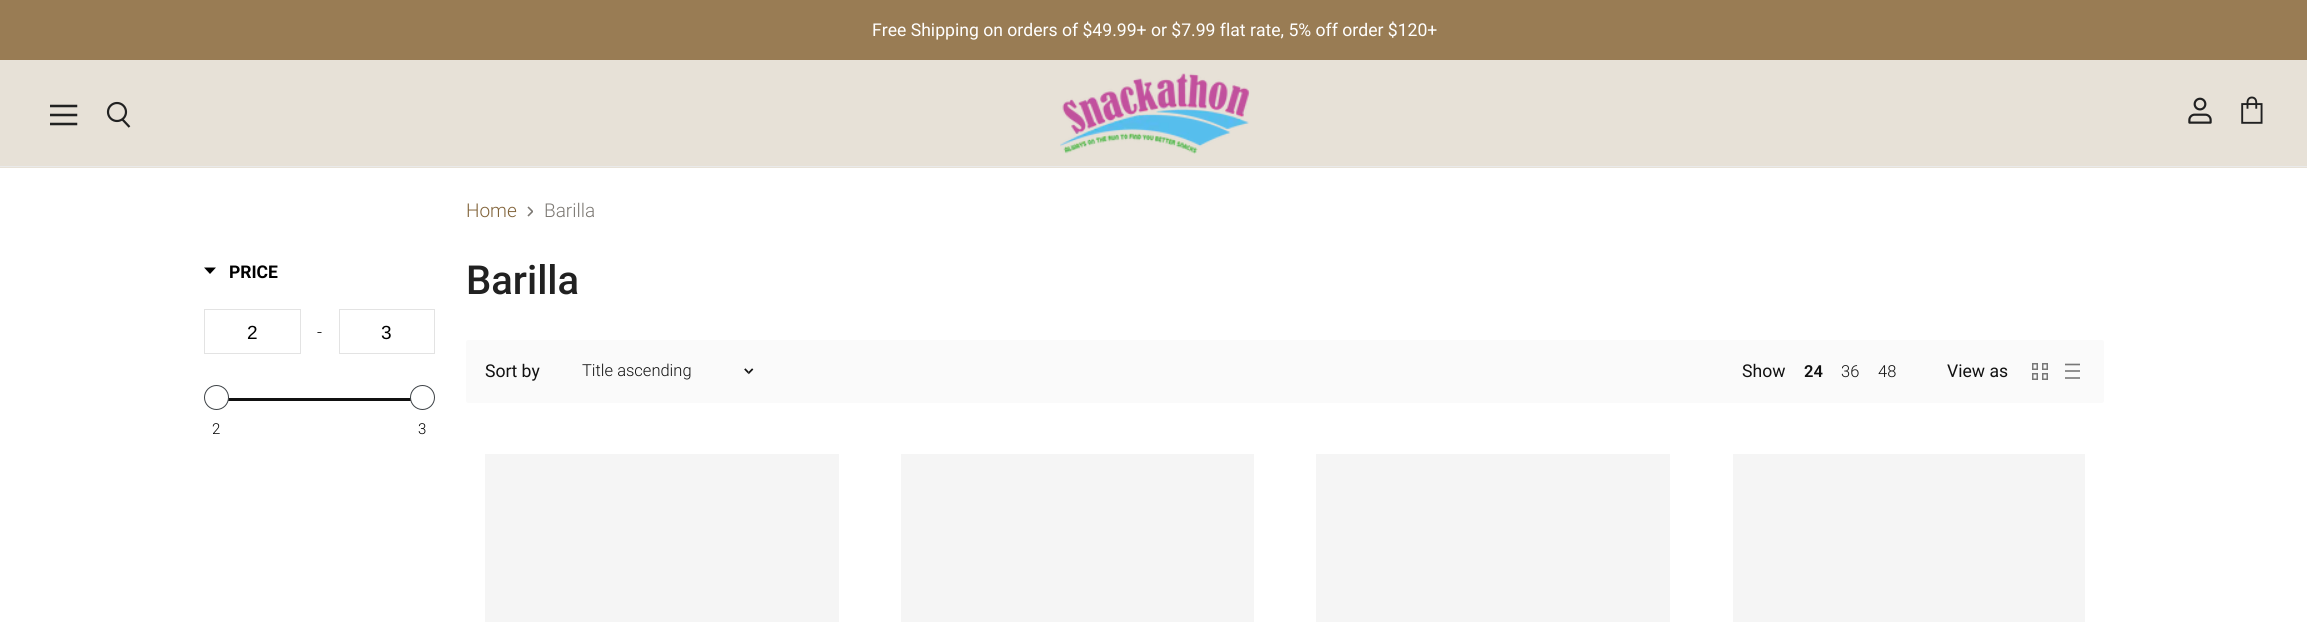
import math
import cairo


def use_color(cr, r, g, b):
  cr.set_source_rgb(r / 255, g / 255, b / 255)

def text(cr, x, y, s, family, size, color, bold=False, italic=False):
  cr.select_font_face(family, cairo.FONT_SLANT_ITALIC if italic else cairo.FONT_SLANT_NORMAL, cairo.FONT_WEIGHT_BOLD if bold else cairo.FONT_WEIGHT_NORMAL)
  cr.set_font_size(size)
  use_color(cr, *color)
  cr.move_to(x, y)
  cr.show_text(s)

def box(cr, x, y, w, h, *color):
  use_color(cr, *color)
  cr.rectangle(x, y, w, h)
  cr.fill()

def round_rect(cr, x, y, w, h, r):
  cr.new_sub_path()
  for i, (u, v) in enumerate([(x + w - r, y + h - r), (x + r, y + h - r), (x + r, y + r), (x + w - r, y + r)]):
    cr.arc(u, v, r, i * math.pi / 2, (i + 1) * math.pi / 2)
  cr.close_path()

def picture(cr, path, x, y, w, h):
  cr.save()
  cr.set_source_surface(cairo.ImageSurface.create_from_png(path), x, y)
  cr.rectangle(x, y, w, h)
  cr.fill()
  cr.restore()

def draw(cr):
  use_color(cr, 255, 255, 255)
  cr.paint()
  box(cr, 0, 0, 2307, 60, 153, 124, 84)
  box(cr, 0, 60, 2307, 108, 231, 225, 215)
  box(cr, 0, 166, 2307, 1, 234, 234, 234)
  cr.save()
  cr.rectangle(50, 104, 28, 22)
  cr.clip()
  cr.new_path()
  cr.move_to(76, 106)
  cr.line_to(51, 106)
  cr.move_to(76, 115)
  cr.line_to(51, 115)
  cr.move_to(76, 124)
  cr.line_to(51, 124)
  use_color(cr, 33, 33, 33)
  cr.set_line_width(2.5)
  cr.set_line_cap(cairo.LINE_CAP_SQUARE)
  cr.set_line_join(cairo.LINE_JOIN_ROUND)
  cr.stroke()
  cr.restore()
  cr.new_path()
  cr.move_to(129.5, 127)
  cr.line_to(122, 119)
  use_color(cr, 33, 33, 33)
  cr.set_line_width(2.2)
  cr.stroke()
  cr.arc(117, 112, 9, 0, 2 * math.pi)
  cr.stroke()
  picture(cr, "img_01.png", 1060, 73, 190, 81)
  picture(cr, "img_02.png", 2188, 97, 24, 27)
  picture(cr, "img_03.png", 2241, 96, 22, 28)
  use_color(cr, 0, 0, 0)
  cr.new_path()
  cr.move_to(204, 267.5)
  cr.line_to(216, 267.5)
  cr.line_to(210, 274)
  cr.close_path()
  cr.fill()
  cr.rectangle(204.5, 309.5, 96, 44)
  use_color(cr, 227, 227, 227)
  cr.set_line_width(1)
  cr.stroke()
  cr.rectangle(339.5, 309.5, 95, 44)
  cr.stroke()
  box(cr, 228, 398, 183, 3, 17, 17, 17)
  use_color(cr, 255, 255, 255)
  cr.arc(216.5, 397.5, 12, 0, 2 * math.pi)
  cr.fill_preserve()
  use_color(cr, 61, 66, 70)
  cr.stroke()
  use_color(cr, 255, 255, 255)
  cr.arc(422.5, 397.5, 12, 0, 2 * math.pi)
  cr.fill_preserve()
  use_color(cr, 61, 66, 70)
  cr.stroke()
  cr.save()
  cr.new_path()
  cr.move_to(527, 216.5)
  cr.line_to(527, 206.5)
  cr.line_to(533, 206.5)
  cr.line_to(533, 216.5)
  cr.close_path()
  cr.clip()
  cr.new_path()
  cr.move_to(528, 216)
  cr.line_to(532.5, 211.5)
  cr.line_to(528, 207)
  use_color(cr, 124, 120, 115)
  cr.set_line_width(1.6)
  cr.stroke()
  cr.restore()
  use_color(cr, 250, 250, 250)
  round_rect(cr, 466, 340, 1638, 63, 2)
  cr.fill()
  picture(cr, "img_04.png", 744, 368, 10, 7)
  picture(cr, "img_05.png", 2032, 363, 16, 17)
  cr.new_path()
  cr.move_to(2065, 364.5)
  cr.line_to(2080, 364.5)
  use_color(cr, 119, 119, 119)
  cr.set_line_width(1.6)
  cr.set_line_join(cairo.LINE_JOIN_ROUND)
  cr.stroke()
  box(cr, 2065, 370, 15, 2, 145, 145, 145)
  box(cr, 2065, 377, 15, 2, 145, 145, 145)
  box(cr, 485, 454, 354, 168, 245, 245, 245)
  box(cr, 901, 454, 353, 168, 245, 245, 245)
  box(cr, 1316, 454, 354, 168, 245, 245, 245)
  box(cr, 1733, 454, 352, 168, 245, 245, 245)
  text(cr, 872, 36, "Free Shipping on orders of $49.99+ or $7.99 flat rate, 5% off order $120+", "Roboto", 17.6, (255, 255, 255))
  text(cr, 229, 278, "PRICE", "Roboto", 17.5, (0, 0, 0), bold=True)
  text(cr, 247, 339, "2", "Liberation Sans", 19, (0, 0, 0))
  text(cr, 317, 338, "-", "Roboto Light", 17.5, (17, 17, 17))
  text(cr, 381, 339, "3", "Liberation Sans", 19, (0, 0, 0))
  text(cr, 212, 434, "2", "Roboto Light", 15, (0, 0, 0))
  text(cr, 418, 434, "3", "Roboto Light", 15, (0, 0, 0))
  text(cr, 466, 217, "Home", "Roboto Light", 19, (129, 99, 57))
  text(cr, 544, 217, "Barilla", "Roboto Light", 19, (124, 120, 115))
  text(cr, 466, 294, "Barilla", "Roboto Medium", 40, (33, 33, 33))
  text(cr, 485, 377, "Sort by", "Roboto", 17.6, (17, 17, 17))
  text(cr, 582, 376, "Title ascending", "Roboto Light", 16.5, (17, 17, 17))
  text(cr, 1742, 377, "Show", "Roboto", 17.6, (17, 17, 17))
  text(cr, 1804, 377, "24", "Roboto SemiBold", 16.5, (17, 17, 17))
  text(cr, 1841, 377, "36", "Roboto Light", 16.5, (17, 17, 17))
  text(cr, 1878, 377, "48", "Roboto Light", 16.5, (17, 17, 17))
  text(cr, 1947, 377, "View as", "Roboto", 17.6, (17, 17, 17))


surface = cairo.ImageSurface(cairo.FORMAT_RGB24, 2307, 622)
cr = cairo.Context(surface)
options = cairo.FontOptions()
options.set_hint_metrics(cairo.HINT_METRICS_OFF)
options.set_hint_style(cairo.HINT_STYLE_NONE)
cr.set_font_options(options)
cr.set_miter_limit(4)
draw(cr)
surface.write_to_png("out.png")
